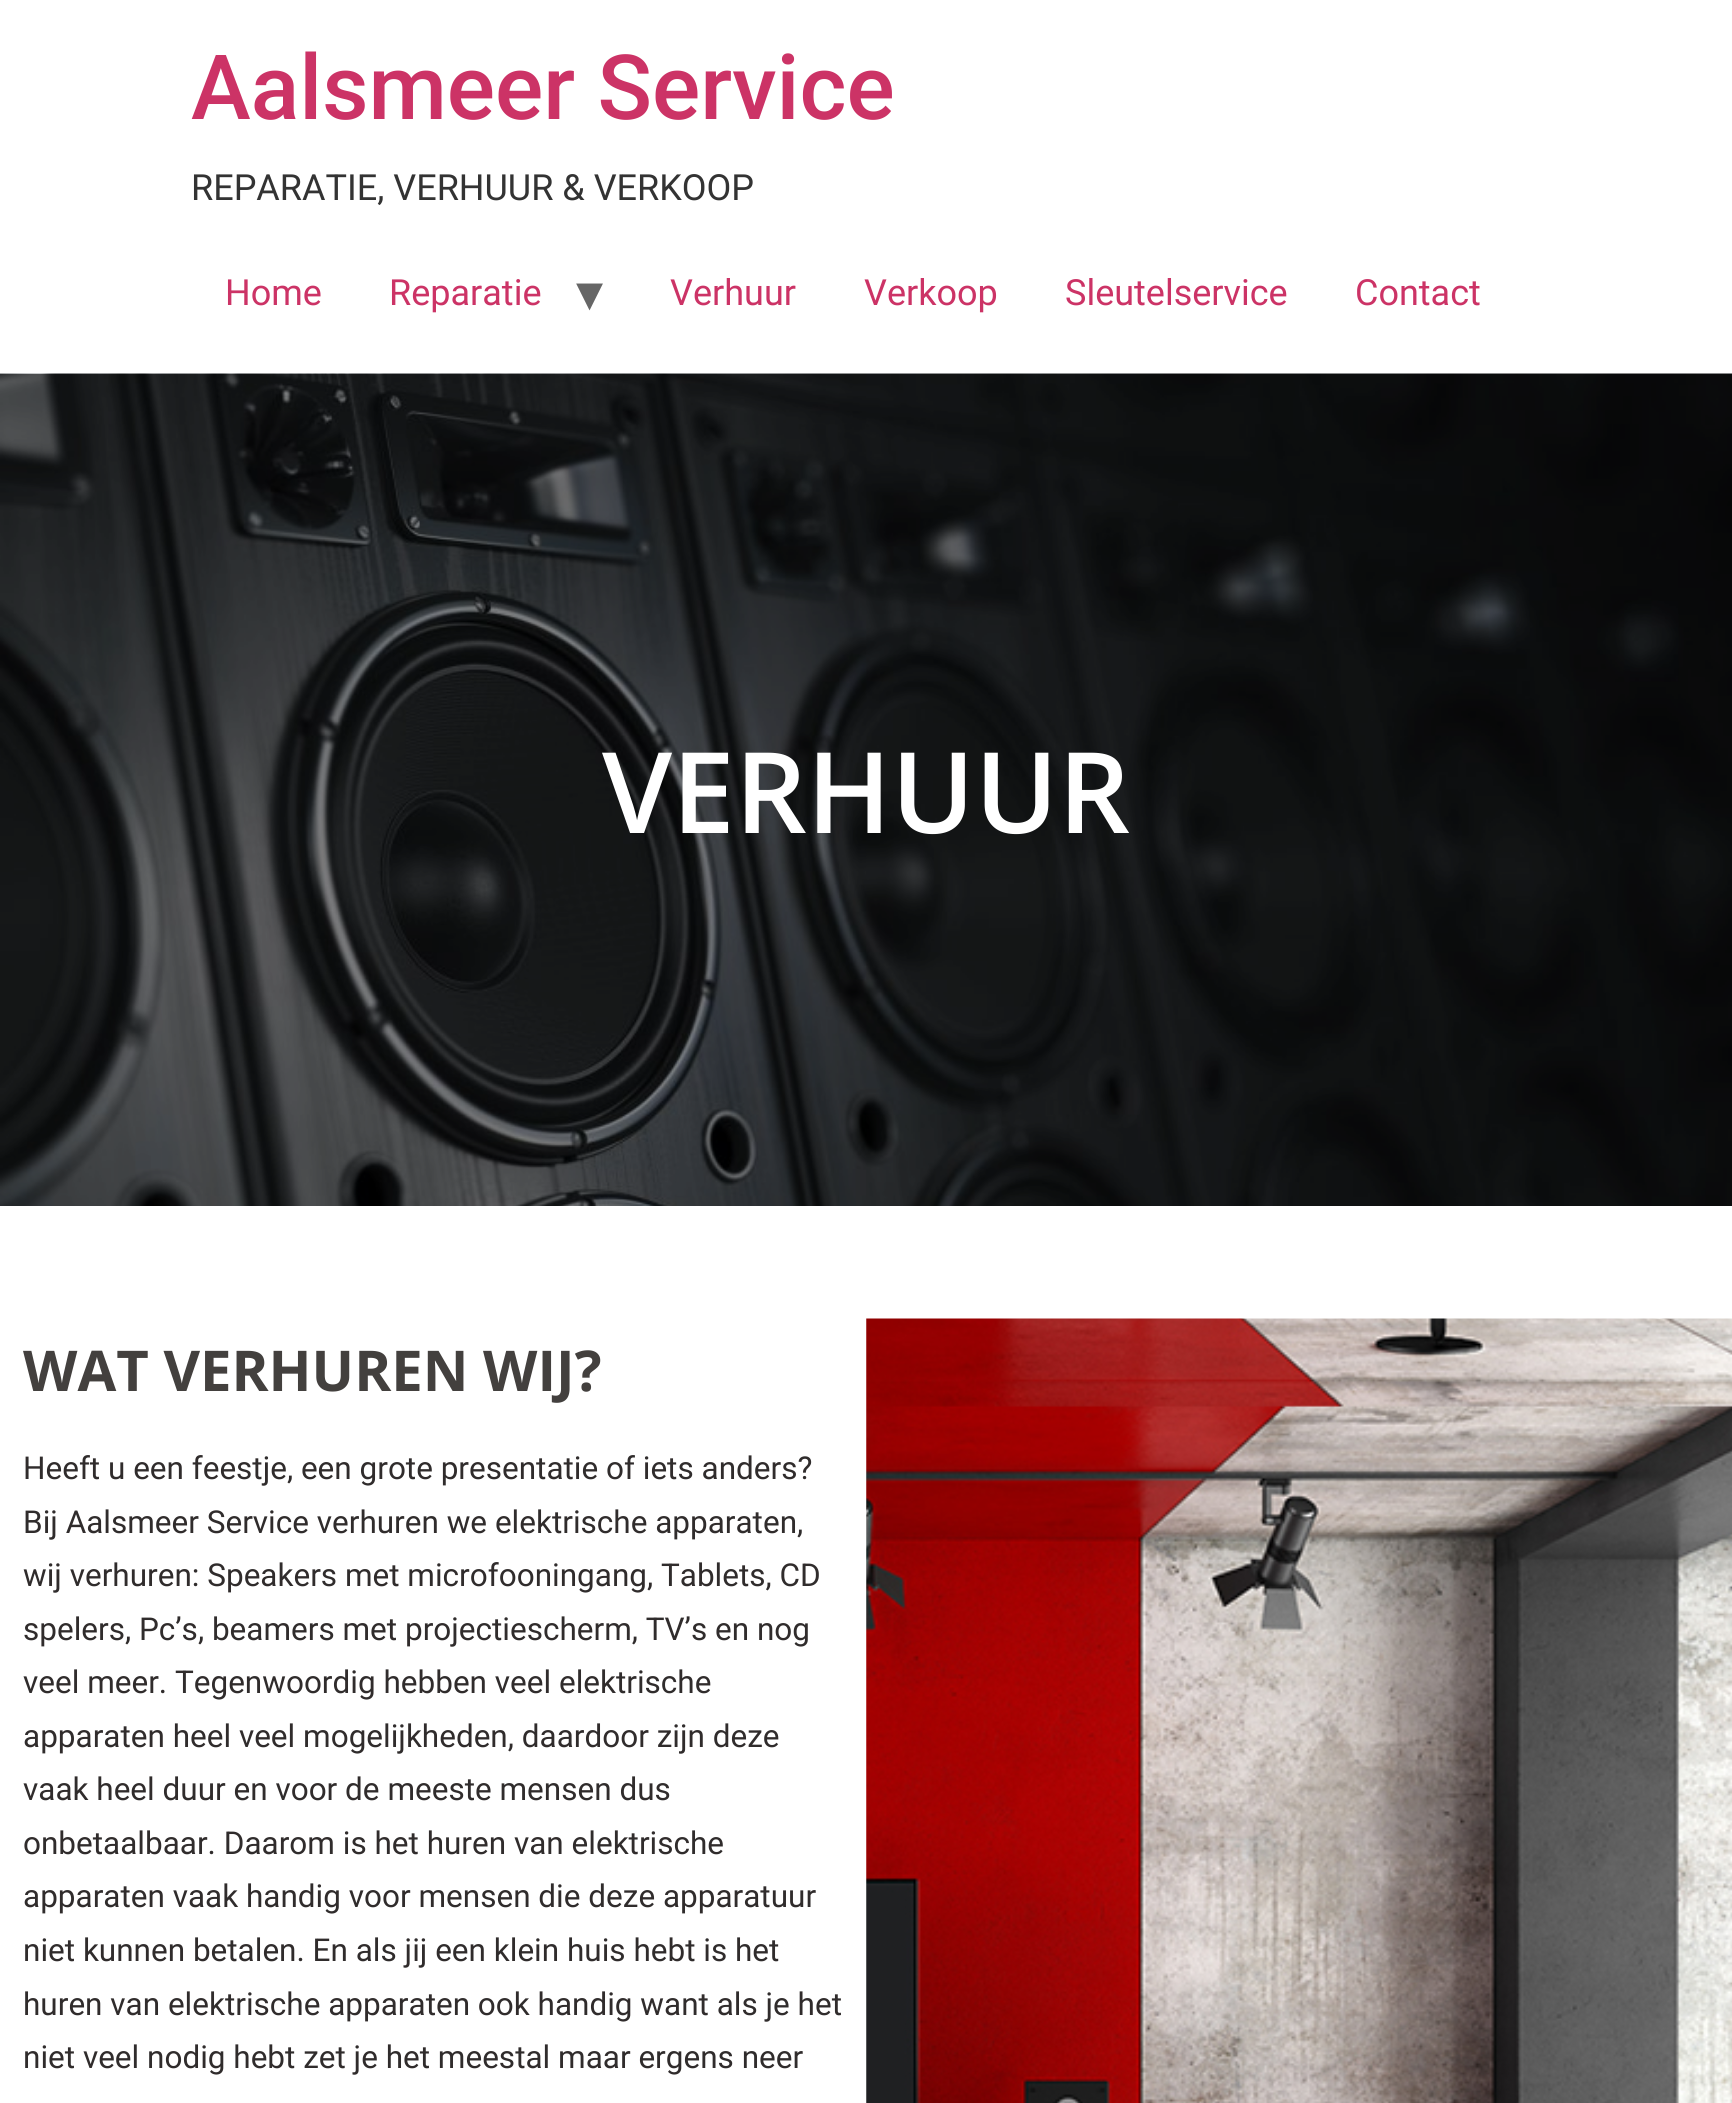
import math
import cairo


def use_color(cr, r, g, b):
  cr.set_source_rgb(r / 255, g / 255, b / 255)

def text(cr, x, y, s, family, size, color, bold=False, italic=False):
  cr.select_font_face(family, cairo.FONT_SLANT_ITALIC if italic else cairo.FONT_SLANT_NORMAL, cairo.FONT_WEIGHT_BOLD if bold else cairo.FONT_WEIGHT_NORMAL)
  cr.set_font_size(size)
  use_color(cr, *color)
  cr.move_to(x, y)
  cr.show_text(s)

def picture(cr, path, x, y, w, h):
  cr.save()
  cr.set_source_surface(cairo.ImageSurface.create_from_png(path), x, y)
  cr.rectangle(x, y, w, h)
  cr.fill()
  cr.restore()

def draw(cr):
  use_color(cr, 255, 255, 255)
  cr.paint()
  picture(cr, "img_01.png", 0, 373, 1732, 833)
  picture(cr, "img_02.png", 866, 1318, 866, 785)
  text(cr, 191, 119, "Aalsmeer Service", "Roboto Medium", 90, (204, 51, 102))
  text(cr, 191, 200, "REPARATIE, VERHUUR & VERKOOP", "Roboto", 36, (51, 51, 51))
  text(cr, 225, 305, "Home", "Roboto", 36, (204, 51, 102))
  text(cr, 389, 305, "Reparatie", "Roboto", 36, (204, 51, 102))
  text(cr, 576, 311, "▾", "DejaVu Sans", 54, (102, 102, 102))
  text(cr, 670, 305, "Verhuur", "Roboto", 36, (204, 51, 102))
  text(cr, 864, 305, "Verkoop", "Roboto", 36, (204, 51, 102))
  text(cr, 1065, 305, "Sleutelservice", "Roboto", 36, (204, 51, 102))
  text(cr, 1355, 305, "Contact", "Roboto", 36, (204, 51, 102))
  text(cr, 602, 833, "VERHUUR", "Open Sans SemiBold", 112.5, (255, 255, 255))
  text(cr, 23, 1391, "WAT VERHUREN WIJ?", "Open Sans", 56.25, (67, 64, 62), bold=True)
  text(cr, 23, 1479, "Heeft u een feestje, een grote presentatie of iets anders?", "Roboto", 31.5, (48, 44, 44))
  text(cr, 23, 1533, "Bij Aalsmeer Service verhuren we elektrische apparaten,", "Roboto", 31.5, (48, 44, 44))
  text(cr, 23, 1586, "wij verhuren: Speakers met microfooningang, Tablets, CD", "Roboto", 31.5, (48, 44, 44))
  text(cr, 23, 1640, "spelers, Pc’s, beamers met projectiescherm, TV’s en nog", "Roboto", 31.5, (48, 44, 44))
  text(cr, 23, 1693, "veel meer. Tegenwoordig hebben veel elektrische", "Roboto", 31.5, (48, 44, 44))
  text(cr, 23, 1747, "apparaten heel veel mogelijkheden, daardoor zijn deze", "Roboto", 31.5, (48, 44, 44))
  text(cr, 23, 1800, "vaak heel duur en voor de meeste mensen dus", "Roboto", 31.5, (48, 44, 44))
  text(cr, 23, 1854, "onbetaalbaar. Daarom is het huren van elektrische", "Roboto", 31.5, (48, 44, 44))
  text(cr, 23, 1907, "apparaten vaak handig voor mensen die deze apparatuur", "Roboto", 31.5, (48, 44, 44))
  text(cr, 23, 1961, "niet kunnen betalen. En als jij een klein huis hebt is het", "Roboto", 31.5, (48, 44, 44))
  text(cr, 23, 2015, "huren van elektrische apparaten ook handig want als je het", "Roboto", 31.5, (48, 44, 44))
  text(cr, 23, 2068, "niet veel nodig hebt zet je het meestal maar ergens neer", "Roboto", 31.5, (48, 44, 44))


surface = cairo.ImageSurface(cairo.FORMAT_RGB24, 1732, 2103)
cr = cairo.Context(surface)
options = cairo.FontOptions()
options.set_hint_metrics(cairo.HINT_METRICS_OFF)
options.set_hint_style(cairo.HINT_STYLE_NONE)
cr.set_font_options(options)
cr.set_miter_limit(4)
draw(cr)
surface.write_to_png("out.png")
